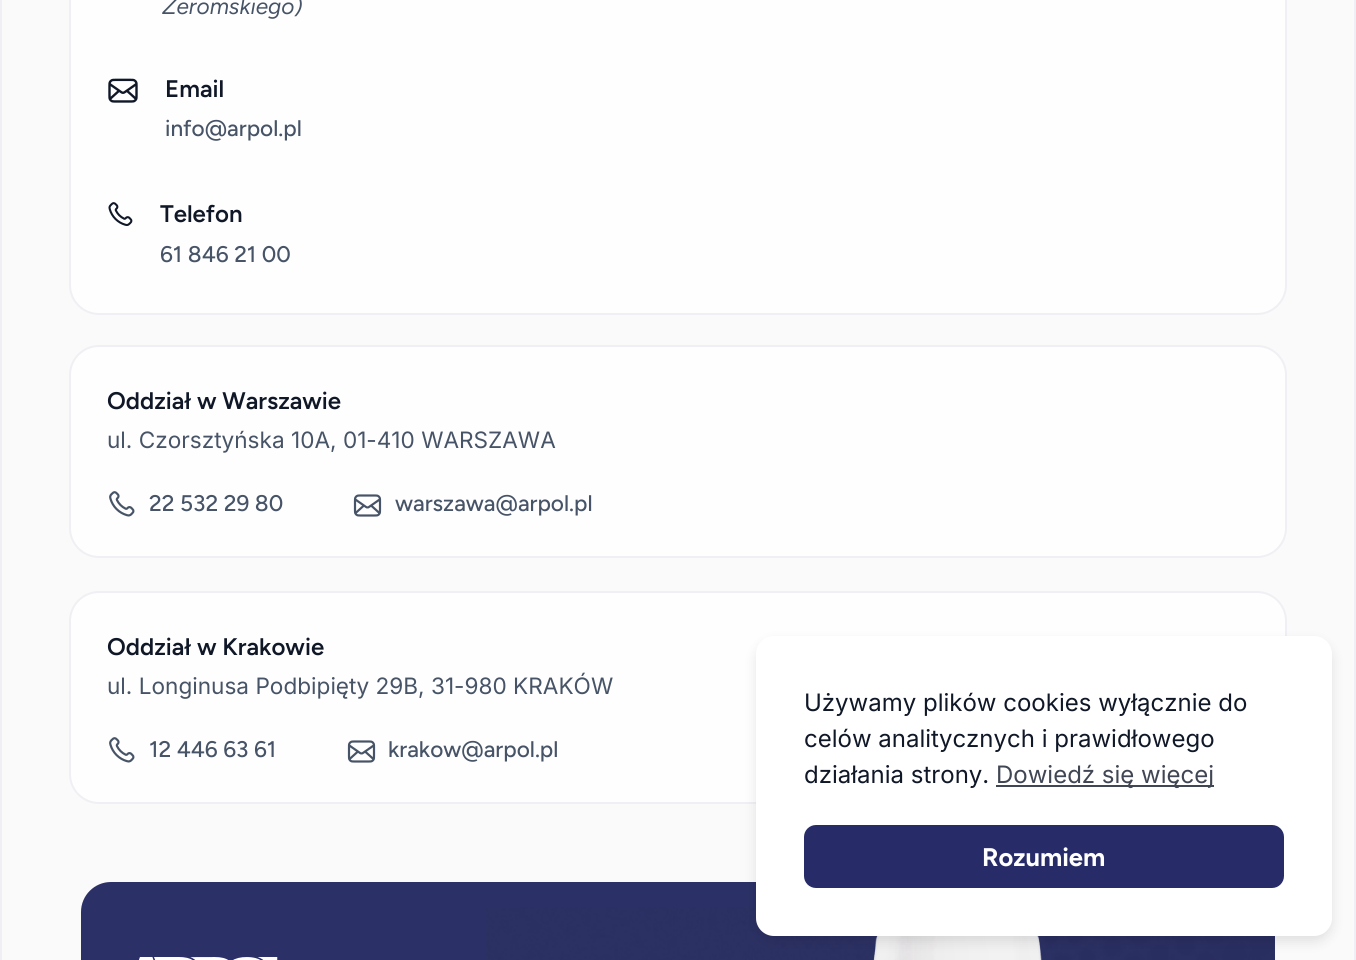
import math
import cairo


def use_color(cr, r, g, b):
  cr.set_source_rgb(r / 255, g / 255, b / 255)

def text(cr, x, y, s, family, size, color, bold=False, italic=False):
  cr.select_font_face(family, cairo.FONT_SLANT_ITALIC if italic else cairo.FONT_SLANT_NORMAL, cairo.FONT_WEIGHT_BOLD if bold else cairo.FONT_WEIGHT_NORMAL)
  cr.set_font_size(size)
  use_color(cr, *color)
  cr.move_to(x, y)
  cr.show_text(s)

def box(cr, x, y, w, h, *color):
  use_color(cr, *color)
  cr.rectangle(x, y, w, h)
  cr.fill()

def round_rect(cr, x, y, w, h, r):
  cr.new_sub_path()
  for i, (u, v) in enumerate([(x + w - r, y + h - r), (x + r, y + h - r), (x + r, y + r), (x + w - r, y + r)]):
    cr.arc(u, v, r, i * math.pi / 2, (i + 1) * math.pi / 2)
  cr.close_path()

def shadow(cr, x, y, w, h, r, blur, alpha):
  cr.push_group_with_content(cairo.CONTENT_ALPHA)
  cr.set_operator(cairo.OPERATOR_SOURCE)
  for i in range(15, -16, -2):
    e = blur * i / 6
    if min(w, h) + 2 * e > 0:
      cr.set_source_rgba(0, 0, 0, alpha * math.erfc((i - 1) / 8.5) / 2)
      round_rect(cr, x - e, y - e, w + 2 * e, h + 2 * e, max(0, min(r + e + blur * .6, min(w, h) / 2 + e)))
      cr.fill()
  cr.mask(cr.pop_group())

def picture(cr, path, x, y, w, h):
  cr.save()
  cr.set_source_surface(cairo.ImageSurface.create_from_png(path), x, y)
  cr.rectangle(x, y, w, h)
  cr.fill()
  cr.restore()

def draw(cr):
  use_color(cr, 250, 250, 251)
  cr.paint()
  cr.rectangle(1, -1, 1354, 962)
  use_color(cr, 240, 240, 244)
  cr.stroke()
  use_color(cr, 254, 254, 254)
  round_rect(cr, 70, -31, 1216, 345, 29)
  cr.fill_preserve()
  use_color(cr, 240, 240, 244)
  cr.stroke()
  picture(cr, "img_01.png", 108, 78, 30, 25)
  picture(cr, "img_02.png", 108, 202, 25, 24)
  use_color(cr, 254, 254, 254)
  round_rect(cr, 70, 346, 1216, 211, 29)
  cr.fill_preserve()
  use_color(cr, 240, 240, 244)
  cr.stroke()
  picture(cr, "img_03.png", 109, 491, 26, 26)
  picture(cr, "img_04.png", 353, 494, 29, 23)
  use_color(cr, 254, 254, 254)
  round_rect(cr, 70, 592, 1216, 211, 29)
  cr.fill_preserve()
  use_color(cr, 240, 240, 244)
  cr.stroke()
  picture(cr, "img_03.png", 109, 737, 26, 26)
  picture(cr, "img_04.png", 347, 740, 29, 23)
  use_color(cr, 43, 48, 102)
  round_rect(cr, 81, 882, 1194, 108, 30)
  cr.fill()
  picture(cr, "img_05.png", 486, 907, 789, 53)
  picture(cr, "img_06.png", 139, 957, 139, 3)
  picture(cr, "img_07.png", 873, 936, 169, 24)
  use_color(cr, 0, 0, 0)
  shadow(cr, 756, 642, 576, 300, 18, 6, 0.1)
  use_color(cr, 255, 255, 255)
  round_rect(cr, 756, 636, 576, 300, 18)
  cr.fill()
  box(cr, 996, 785, 218, 2, 64, 70, 83)
  use_color(cr, 39, 44, 105)
  round_rect(cr, 804, 825, 480, 63, 12)
  cr.fill()
  text(cr, 162, 14, "Żeromskiego)", "Figtree", 22.6, (71, 84, 103), italic=True)
  text(cr, 165, 97, "Email", "Figtree SemiBold", 24, (16, 24, 40))
  text(cr, 165, 136, "info@arpol.pl", "Figtree Medium", 22.6, (71, 84, 103))
  text(cr, 160, 222, "Telefon", "Figtree SemiBold", 24, (16, 24, 40))
  text(cr, 160, 262, "61 846 21 00", "Figtree Medium", 22.6, (71, 84, 103))
  text(cr, 107, 409, "Oddział w Warszawie", "Figtree SemiBold", 24, (16, 24, 40))
  text(cr, 107, 448, "ul. Czorsztyńska 10A, 01-410 WARSZAWA", "Inter", 22.6, (71, 84, 103))
  text(cr, 149, 511, "22 532 29 80", "Figtree Medium", 22.6, (71, 84, 103))
  text(cr, 395, 511, "warszawa@arpol.pl", "Figtree Medium", 22.6, (71, 84, 103))
  text(cr, 107, 655, "Oddział w Krakowie", "Figtree SemiBold", 24, (16, 24, 40))
  text(cr, 107, 694, "ul. Longinusa Podbipięty 29B, 31-980 KRAKÓW", "Inter", 22.6, (71, 84, 103))
  text(cr, 149, 757, "12 446 63 61", "Figtree Medium", 22.6, (71, 84, 103))
  text(cr, 388, 757, "krakow@arpol.pl", "Figtree Medium", 22.6, (71, 84, 103))
  text(cr, 804, 711, "Używamy plików cookies wyłącznie do", "Inter", 24, (16, 24, 40))
  text(cr, 804, 747, "celów analitycznych i prawidłowego", "Inter", 24, (16, 24, 40))
  text(cr, 804, 783, "działania strony.", "Inter", 24, (16, 24, 40))
  text(cr, 996, 783, "Dowiedź się więcej", "Inter", 24, (64, 70, 83))
  text(cr, 982, 866, "Rozumiem", "Figtree", 25.5, (255, 255, 255), bold=True)


surface = cairo.ImageSurface(cairo.FORMAT_RGB24, 1356, 960)
cr = cairo.Context(surface)
options = cairo.FontOptions()
options.set_hint_metrics(cairo.HINT_METRICS_OFF)
options.set_hint_style(cairo.HINT_STYLE_NONE)
cr.set_font_options(options)
cr.set_miter_limit(4)
draw(cr)
surface.write_to_png("out.png")
